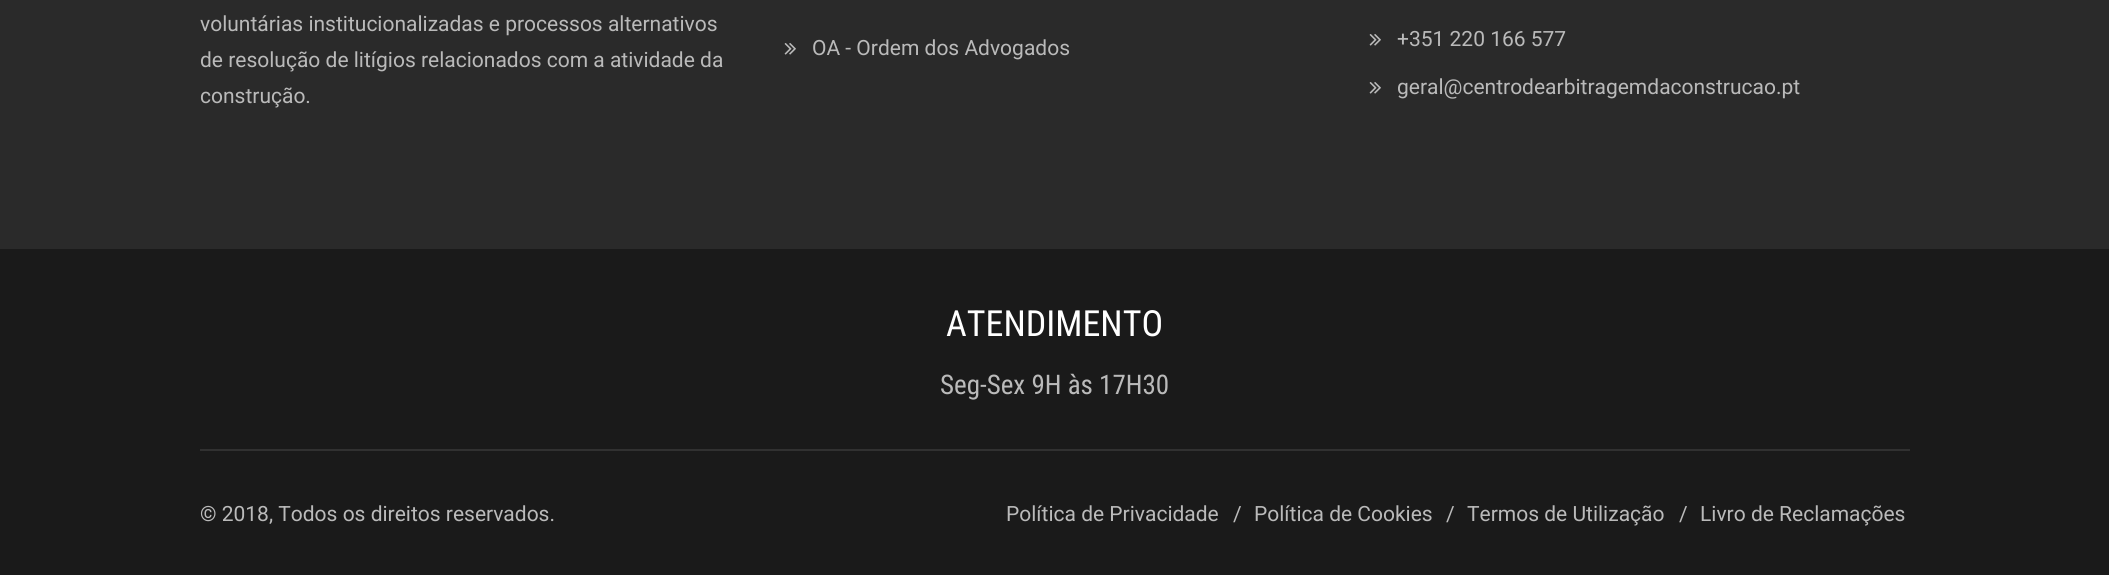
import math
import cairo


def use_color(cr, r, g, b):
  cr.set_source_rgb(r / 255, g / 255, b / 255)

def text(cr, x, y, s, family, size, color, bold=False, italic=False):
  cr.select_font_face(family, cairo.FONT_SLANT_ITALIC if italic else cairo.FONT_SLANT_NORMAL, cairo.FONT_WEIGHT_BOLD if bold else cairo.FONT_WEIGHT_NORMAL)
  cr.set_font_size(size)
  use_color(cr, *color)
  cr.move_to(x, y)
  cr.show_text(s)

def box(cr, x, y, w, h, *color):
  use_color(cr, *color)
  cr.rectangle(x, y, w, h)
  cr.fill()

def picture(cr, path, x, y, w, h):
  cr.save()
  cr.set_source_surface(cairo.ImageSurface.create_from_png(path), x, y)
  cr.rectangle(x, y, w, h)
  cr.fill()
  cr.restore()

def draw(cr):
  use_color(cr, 42, 42, 42)
  cr.paint()
  picture(cr, "img_01.png", 784, 43, 12, 12)
  picture(cr, "img_01.png", 1369, 34, 12, 12)
  picture(cr, "img_01.png", 1369, 82, 12, 12)
  box(cr, 0, 249, 2109, 326, 26, 26, 26)
  box(cr, 200, 449, 1710, 2, 49, 49, 49)
  text(cr, 200, 31, "voluntárias institucionalizadas e processos alternativos", "Roboto", 21, (186, 186, 186))
  text(cr, 200, 67, "de resolução de litígios relacionados com a atividade da", "Roboto", 21, (186, 186, 186))
  text(cr, 200, 103, "construção.", "Roboto", 21, (186, 186, 186))
  text(cr, 812, 55, "OA - Ordem dos Advogados", "Roboto", 21, (186, 186, 186))
  text(cr, 1397, 46, "+351 220 166 577", "Roboto", 21, (186, 186, 186))
  text(cr, 1397, 94, "geral@centrodearbitragemdaconstrucao.pt", "Roboto", 21, (186, 186, 186))
  text(cr, 946, 336, "ATENDIMENTO", "Roboto Condensed", 36, (255, 255, 255))
  text(cr, 940, 394, "Seg-Sex 9H às 17H30", "Roboto Condensed", 27, (186, 186, 186))
  text(cr, 200, 521, "© 2018, Todos os direitos reservados.", "Roboto", 21, (186, 186, 186))
  text(cr, 1006, 521, "Política de Privacidade", "Roboto", 21, (186, 186, 186))
  text(cr, 1233, 521, "/", "Roboto", 21, (186, 186, 186))
  text(cr, 1254, 521, "Política de Cookies", "Roboto", 21, (186, 186, 186))
  text(cr, 1446, 521, "/", "Roboto", 21, (186, 186, 186))
  text(cr, 1467, 521, "Termos de Utilização", "Roboto", 21, (186, 186, 186))
  text(cr, 1679, 521, "/", "Roboto", 21, (186, 186, 186))
  text(cr, 1700, 521, "Livro de Reclamações", "Roboto", 21, (186, 186, 186))


surface = cairo.ImageSurface(cairo.FORMAT_RGB24, 2109, 575)
cr = cairo.Context(surface)
options = cairo.FontOptions()
options.set_hint_metrics(cairo.HINT_METRICS_OFF)
options.set_hint_style(cairo.HINT_STYLE_NONE)
cr.set_font_options(options)
cr.set_miter_limit(4)
draw(cr)
surface.write_to_png("out.png")
